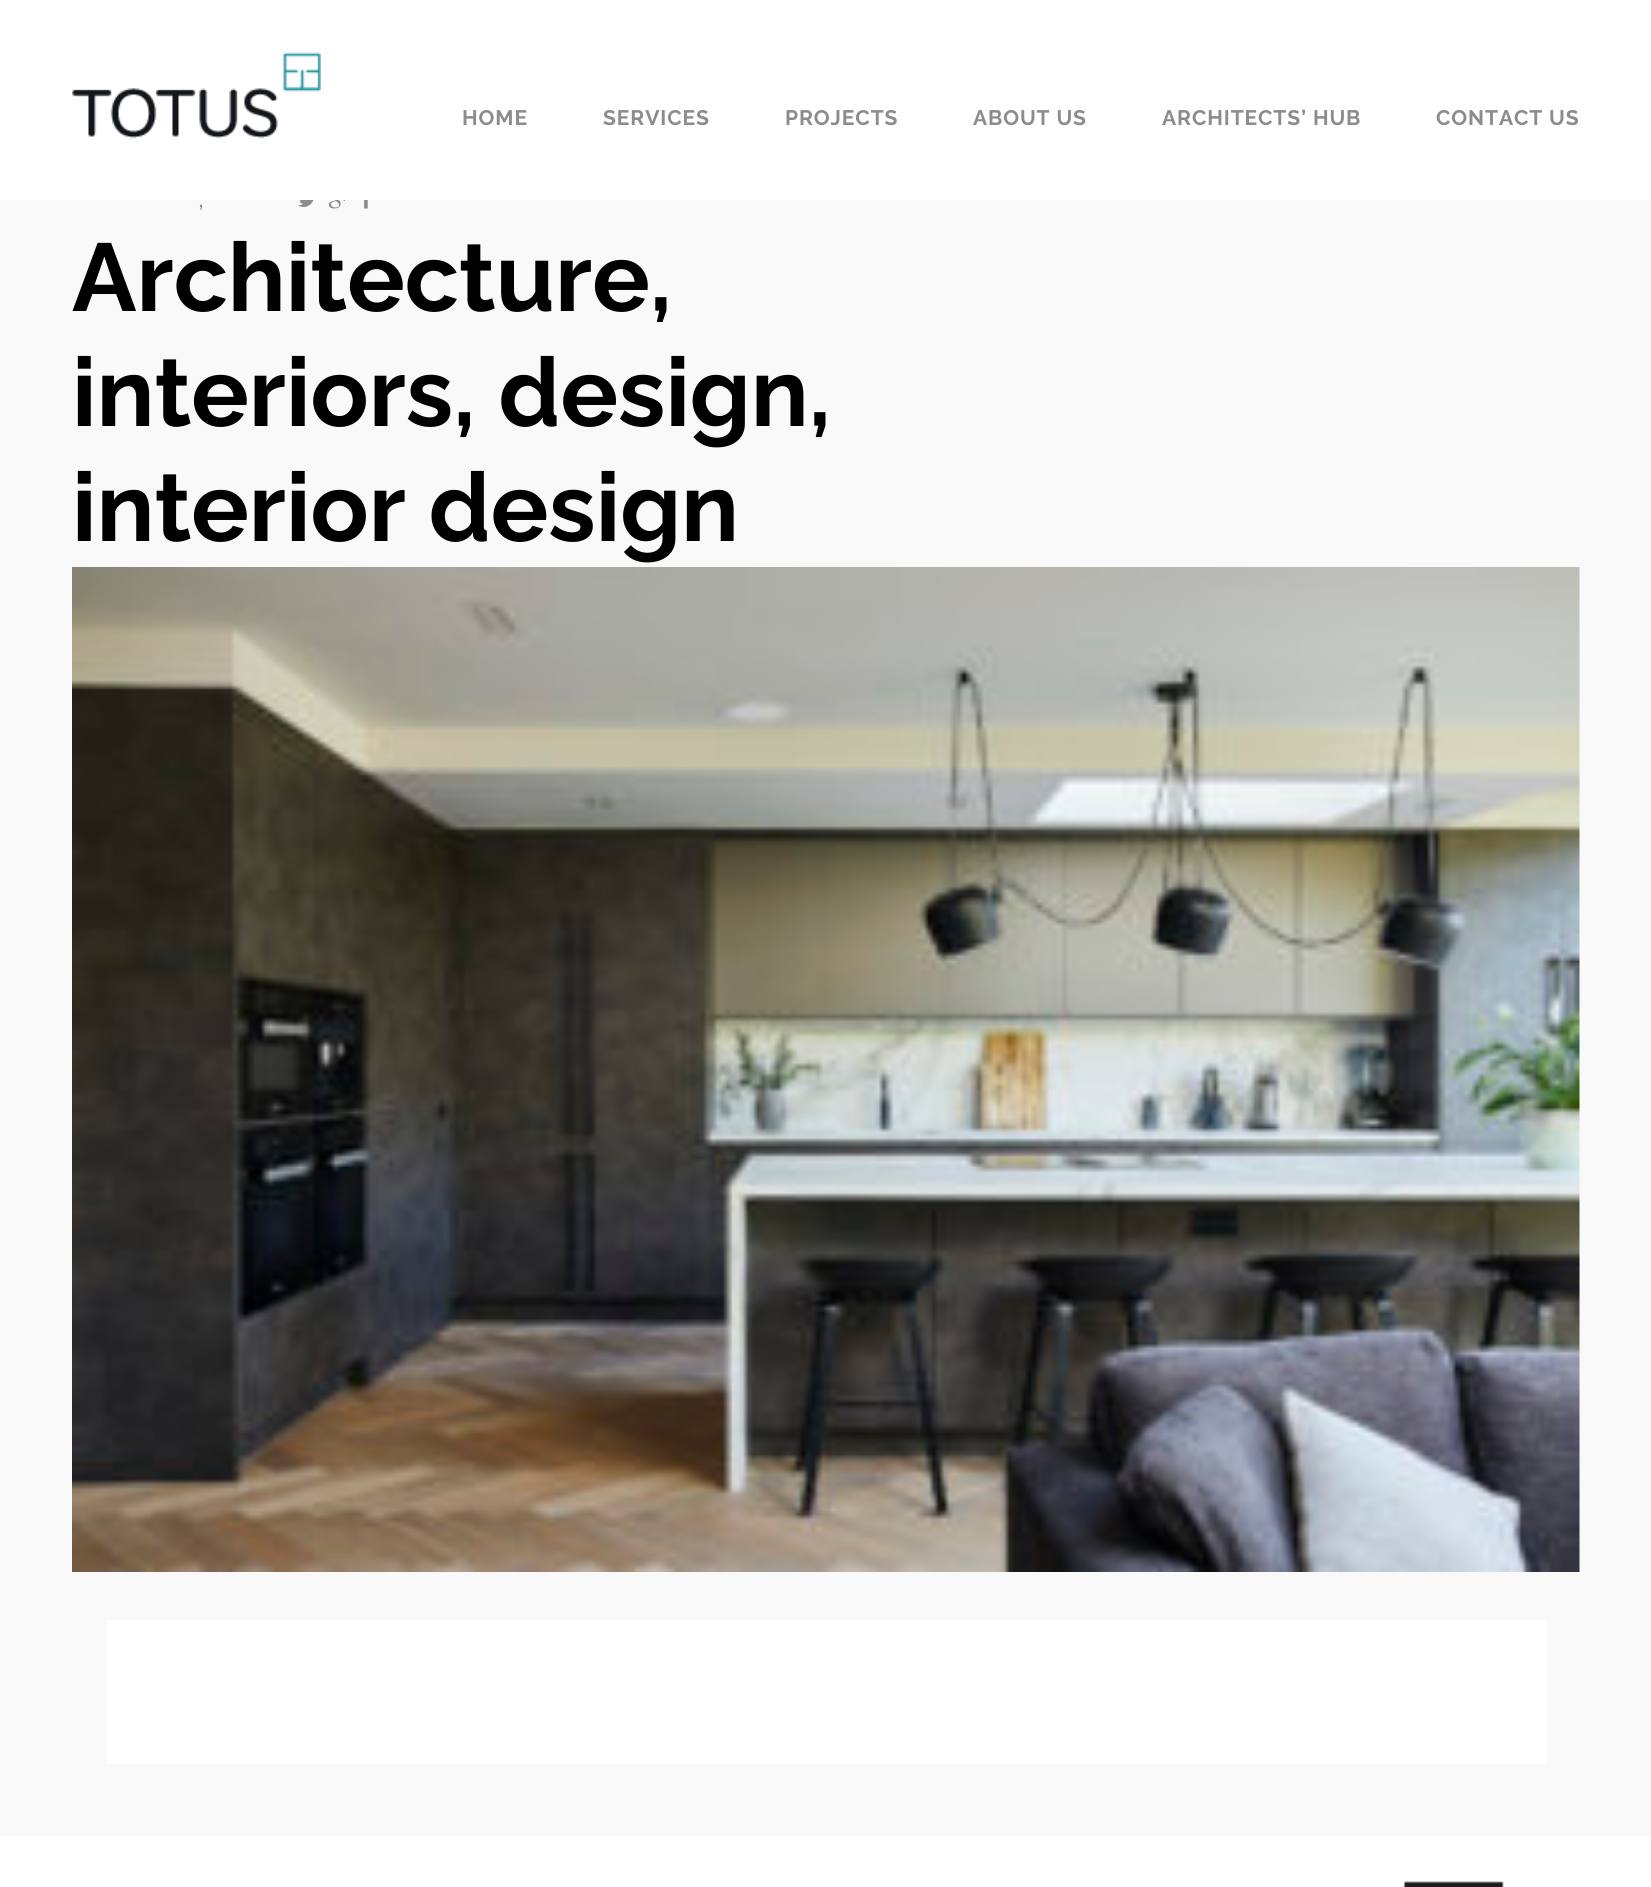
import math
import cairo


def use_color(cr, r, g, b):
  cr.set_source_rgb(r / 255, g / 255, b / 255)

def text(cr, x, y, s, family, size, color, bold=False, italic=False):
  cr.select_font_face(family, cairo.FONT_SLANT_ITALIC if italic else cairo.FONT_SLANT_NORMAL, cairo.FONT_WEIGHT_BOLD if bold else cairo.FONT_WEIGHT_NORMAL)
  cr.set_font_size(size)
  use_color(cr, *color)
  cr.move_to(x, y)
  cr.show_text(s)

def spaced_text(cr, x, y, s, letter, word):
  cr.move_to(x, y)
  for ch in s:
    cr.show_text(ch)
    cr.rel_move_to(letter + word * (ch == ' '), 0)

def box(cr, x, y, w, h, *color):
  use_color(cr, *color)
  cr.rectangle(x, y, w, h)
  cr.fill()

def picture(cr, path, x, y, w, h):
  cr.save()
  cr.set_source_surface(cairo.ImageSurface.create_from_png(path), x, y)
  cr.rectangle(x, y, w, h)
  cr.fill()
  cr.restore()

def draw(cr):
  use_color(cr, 249, 249, 249)
  cr.paint()
  box(cr, 0, 0, 1651, 200, 255, 255, 255)
  picture(cr, "img_01.png", 72, 52, 249, 87)
  picture(cr, "img_02.png", 297, 200, 17, 7)
  picture(cr, "img_03.png", 328, 200, 17, 9)
  picture(cr, "img_04.png", 364, 200, 4, 9)
  picture(cr, "img_05.png", 72, 567, 1508, 1005)
  box(cr, 107, 1620, 1440, 144, 255, 255, 255)
  box(cr, 0, 1836, 1651, 51, 255, 255, 255)
  picture(cr, "img_06.png", 1403, 1881, 101, 6)
  cr.select_font_face("Raleway", cairo.FONT_SLANT_NORMAL, cairo.FONT_WEIGHT_BOLD)
  cr.set_font_size(21)
  use_color(cr, 140, 140, 140)
  spaced_text(cr, 462, 125, "HOME", 0.9, 0)
  spaced_text(cr, 603, 125, "SERVICES", 0.9, 0)
  spaced_text(cr, 785, 125, "PROJECTS", 0.9, 0)
  spaced_text(cr, 973, 125, "ABOUT US", 0.9, 0)
  spaced_text(cr, 1162, 125, "ARCHITECTS’ HUB", 0.9, 0)
  spaced_text(cr, 1436, 125, "CONTACT US", 0.9, 0)
  text(cr, 198, 207, ",", "Liberation Sans", 21, (140, 140, 140))
  text(cr, 72, 311, "Architecture,", "Raleway", 96, (0, 0, 0), bold=True)
  text(cr, 72, 426, "interiors, design,", "Raleway", 96, (0, 0, 0), bold=True)
  text(cr, 72, 541, "interior design", "Raleway", 96, (0, 0, 0), bold=True)


surface = cairo.ImageSurface(cairo.FORMAT_RGB24, 1651, 1887)
cr = cairo.Context(surface)
options = cairo.FontOptions()
options.set_hint_metrics(cairo.HINT_METRICS_OFF)
options.set_hint_style(cairo.HINT_STYLE_NONE)
cr.set_font_options(options)
cr.set_miter_limit(4)
draw(cr)
surface.write_to_png("out.png")
